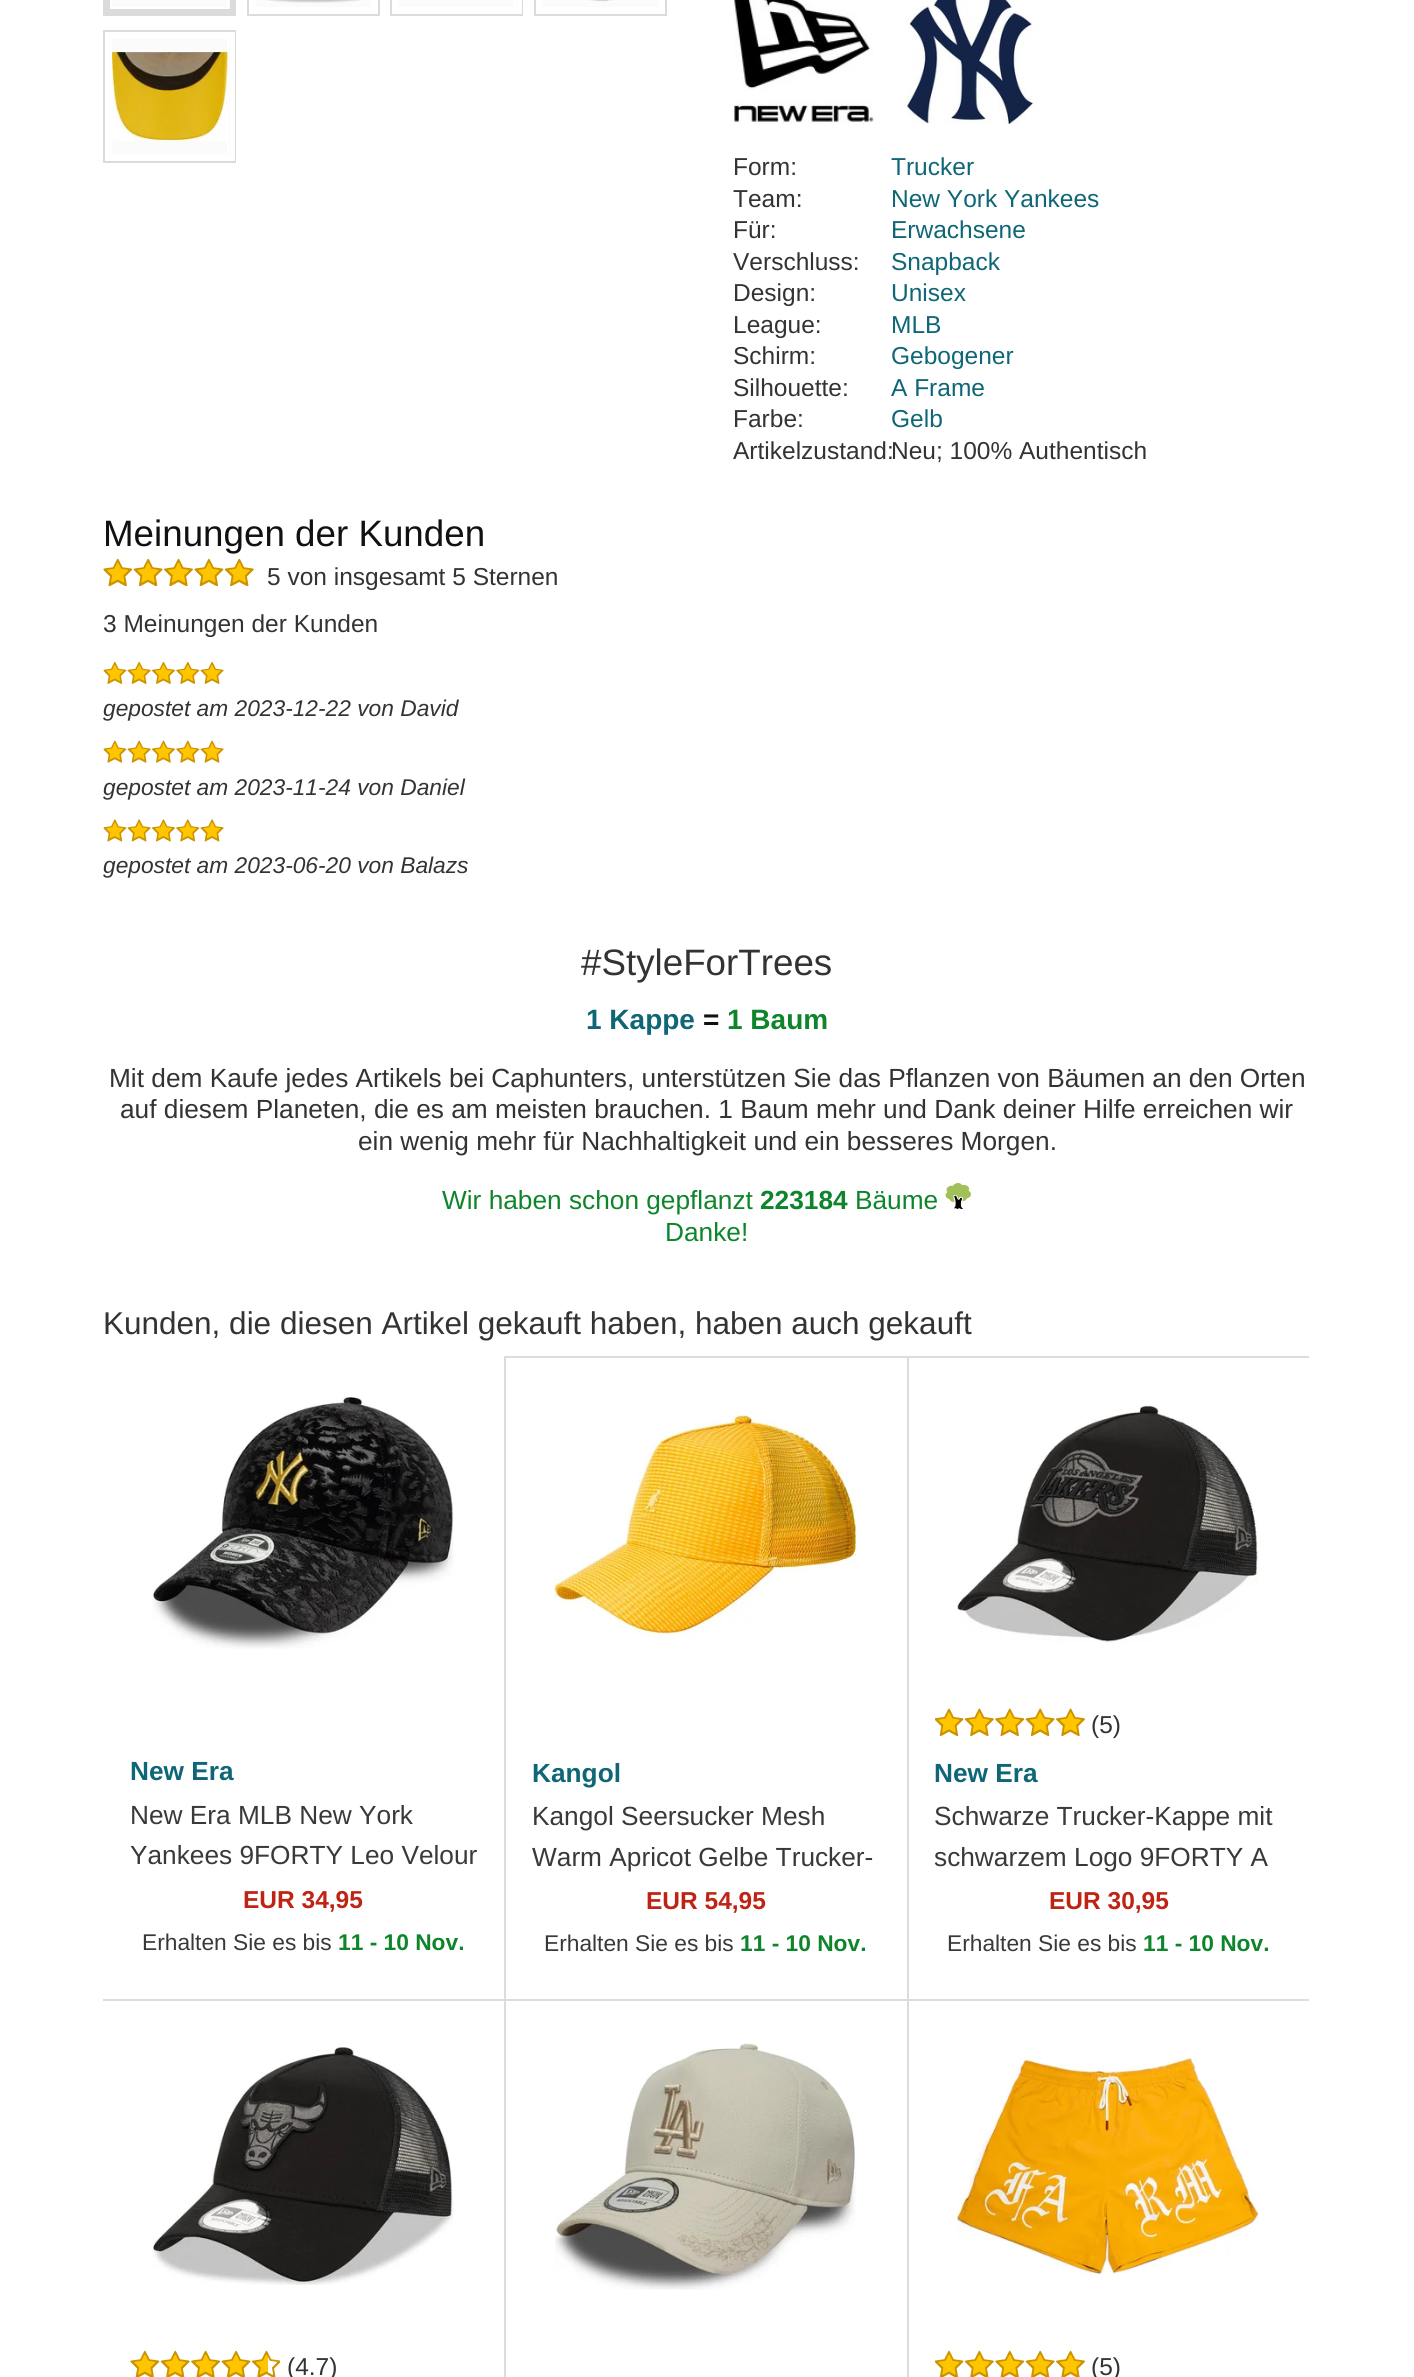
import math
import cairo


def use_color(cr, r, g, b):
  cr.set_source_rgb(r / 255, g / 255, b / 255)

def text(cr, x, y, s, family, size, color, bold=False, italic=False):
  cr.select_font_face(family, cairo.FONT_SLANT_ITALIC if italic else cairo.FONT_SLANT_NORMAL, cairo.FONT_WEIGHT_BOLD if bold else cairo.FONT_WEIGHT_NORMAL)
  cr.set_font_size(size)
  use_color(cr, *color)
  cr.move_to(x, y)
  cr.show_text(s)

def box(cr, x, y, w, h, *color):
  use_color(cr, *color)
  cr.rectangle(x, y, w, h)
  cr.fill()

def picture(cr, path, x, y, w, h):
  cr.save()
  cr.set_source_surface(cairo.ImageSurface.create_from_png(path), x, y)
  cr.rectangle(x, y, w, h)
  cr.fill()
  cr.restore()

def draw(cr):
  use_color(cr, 255, 255, 255)
  cr.paint()
  cr.rectangle(104, -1, 131, 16)
  use_color(cr, 219, 219, 219)
  cr.stroke()
  box(cr, 112, 0, 118, 9, 251, 251, 251)
  cr.rectangle(107.5, -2.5, 125, 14)
  use_color(cr, 219, 219, 219)
  cr.set_line_width(5)
  cr.stroke()
  cr.rectangle(111, -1, 117, 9)
  use_color(cr, 255, 255, 255)
  cr.set_line_width(2)
  cr.stroke()
  cr.rectangle(248, -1, 131, 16)
  use_color(cr, 219, 219, 219)
  cr.stroke()
  box(cr, 256, 0, 115, 7, 251, 251, 251)
  picture(cr, "img_01.png", 267, 0, 98, 3)
  cr.rectangle(391, -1, 131, 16)
  use_color(cr, 219, 219, 219)
  cr.stroke()
  box(cr, 399, 0, 118, 9, 251, 251, 251)
  cr.rectangle(394.5, -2.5, 125, 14)
  use_color(cr, 255, 255, 255)
  cr.set_line_width(5)
  cr.stroke()
  cr.rectangle(398, -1, 117, 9)
  cr.set_line_width(2)
  cr.stroke()
  cr.rectangle(535, -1, 131, 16)
  use_color(cr, 219, 219, 219)
  cr.stroke()
  box(cr, 543, 0, 115, 7, 251, 251, 251)
  picture(cr, "img_02.png", 585, 0, 31, 2)
  cr.rectangle(104, 31, 131, 131)
  use_color(cr, 219, 219, 219)
  cr.stroke()
  box(cr, 112, 37, 118, 119, 251, 251, 251)
  cr.rectangle(107.5, 34.5, 125, 124)
  use_color(cr, 255, 255, 255)
  cr.set_line_width(5)
  cr.stroke()
  cr.rectangle(111, 38, 117, 117)
  cr.set_line_width(2)
  cr.stroke()
  picture(cr, "img_03.png", 112, 50, 116, 91)
  picture(cr, "img_04.png", 733, 0, 141, 124)
  picture(cr, "img_05.png", 906, 0, 134, 124)
  picture(cr, "img_06.png", 103, 558, 151, 28)
  picture(cr, "img_07.png", 103, 661, 121, 23)
  picture(cr, "img_08.png", 103, 740, 121, 23)
  picture(cr, "img_09.png", 103, 819, 121, 23)
  picture(cr, "img_10.png", 945, 1183, 26, 26)
  box(cr, 504, 1356, 2, 643, 221, 221, 221)
  picture(cr, "img_11.png", 152, 1396, 302, 253)
  box(cr, 506, 1356, 402, 2, 221, 221, 221)
  box(cr, 907, 1356, 2, 643, 221, 221, 221)
  picture(cr, "img_12.png", 554, 1414, 302, 225)
  box(cr, 908, 1356, 401, 2, 221, 221, 221)
  picture(cr, "img_13.png", 957, 1405, 301, 238)
  picture(cr, "img_14.png", 935, 1708, 150, 28)
  box(cr, 103, 1999, 805, 2, 221, 221, 221)
  box(cr, 504, 1999, 2, 378, 221, 221, 221)
  picture(cr, "img_15.png", 152, 2047, 302, 238)
  picture(cr, "img_16.png", 130, 2350, 150, 27)
  box(cr, 907, 1999, 2, 378, 221, 221, 221)
  picture(cr, "img_17.png", 555, 2043, 301, 247)
  box(cr, 908, 1999, 401, 2, 221, 221, 221)
  picture(cr, "img_18.png", 957, 2057, 302, 218)
  picture(cr, "img_19.png", 935, 2350, 150, 27)
  text(cr, 733, 175, "Form:", "Liberation Sans", 24.5, (51, 51, 51))
  text(cr, 891, 175, "Trucker", "Liberation Sans", 24.5, (14, 102, 118))
  text(cr, 733, 207, "Team:", "Liberation Sans", 24.5, (51, 51, 51))
  text(cr, 891, 207, "New York Yankees", "Liberation Sans", 24.5, (14, 102, 118))
  text(cr, 733, 238, "Für:", "Liberation Sans", 24.5, (51, 51, 51))
  text(cr, 891, 238, "Erwachsene", "Liberation Sans", 24.5, (14, 102, 118))
  text(cr, 733, 270, "Verschluss:", "Liberation Sans", 24.5, (51, 51, 51))
  text(cr, 891, 270, "Snapback", "Liberation Sans", 24.5, (14, 102, 118))
  text(cr, 733, 301, "Design:", "Liberation Sans", 24.5, (51, 51, 51))
  text(cr, 891, 301, "Unisex", "Liberation Sans", 24.5, (14, 102, 118))
  text(cr, 733, 333, "League:", "Liberation Sans", 24.5, (51, 51, 51))
  text(cr, 891, 333, "MLB", "Liberation Sans", 24.5, (14, 102, 118))
  text(cr, 733, 364, "Schirm:", "Liberation Sans", 24.5, (51, 51, 51))
  text(cr, 891, 364, "Gebogener", "Liberation Sans", 24.5, (14, 102, 118))
  text(cr, 733, 396, "Silhouette:", "Liberation Sans", 24.5, (51, 51, 51))
  text(cr, 891, 396, "A Frame", "Liberation Sans", 24.5, (14, 102, 118))
  text(cr, 733, 427, "Farbe:", "Liberation Sans", 24.5, (51, 51, 51))
  text(cr, 891, 427, "Gelb", "Liberation Sans", 24.5, (14, 102, 118))
  text(cr, 733, 459, "Artikelzustand:", "Liberation Sans", 24.5, (51, 51, 51))
  text(cr, 891, 459, "Neu; 100% Authentisch", "Liberation Sans", 24.5, (51, 51, 51))
  text(cr, 103, 546, "Meinungen der Kunden", "Liberation Sans", 36.75, (17, 17, 17))
  text(cr, 267, 585, "5 von insgesamt 5 Sternen", "Liberation Sans", 24.5, (51, 51, 51))
  text(cr, 103, 632, "3 Meinungen der Kunden", "Liberation Sans", 24.5, (51, 51, 51))
  text(cr, 103, 716, "gepostet am 2023-12-22 von David", "Liberation Sans", 22.75, (51, 51, 51), italic=True)
  text(cr, 103, 795, "gepostet am 2023-11-24 von Daniel", "Liberation Sans", 22.75, (51, 51, 51), italic=True)
  text(cr, 103, 873, "gepostet am 2023-06-20 von Balazs", "Liberation Sans", 22.75, (51, 51, 51), italic=True)
  text(cr, 581, 975, "#StyleForTrees", "Liberation Sans", 36.75, (51, 51, 51))
  text(cr, 586, 1029, "1 Kappe", "Liberation Sans", 28, (14, 102, 118), bold=True)
  text(cr, 703, 1029, "=", "Liberation Sans", 28, (17, 17, 17), bold=True)
  text(cr, 727, 1029, "1 Baum", "Liberation Sans", 28, (14, 133, 43), bold=True)
  text(cr, 109, 1087, "Mit dem Kaufe jedes Artikels bei Caphunters, unterstützen Sie das Pflanzen von Bäumen an den Orten", "Liberation Sans", 26.25, (51, 51, 51))
  text(cr, 120, 1118, "auf diesem Planeten, die es am meisten brauchen. 1 Baum mehr und Dank deiner Hilfe erreichen wir", "Liberation Sans", 26.25, (51, 51, 51))
  text(cr, 358, 1150, "ein wenig mehr für Nachhaltigkeit und ein besseres Morgen.", "Liberation Sans", 26.25, (51, 51, 51))
  text(cr, 442, 1209, "Wir haben schon gepflanzt", "Liberation Sans", 26.25, (14, 133, 43))
  text(cr, 760, 1209, "223184", "Liberation Sans", 26.25, (14, 133, 43), bold=True)
  text(cr, 855, 1209, "Bäume", "Liberation Sans", 26.25, (14, 133, 43))
  text(cr, 665, 1241, "Danke!", "Liberation Sans", 26.25, (14, 133, 43))
  text(cr, 103, 1334, "Kunden, die diesen Artikel gekauft haben, haben auch gekauft", "Liberation Sans", 31.5, (51, 51, 51))
  text(cr, 130, 1780, "New Era", "Liberation Sans", 26.25, (14, 102, 118), bold=True)
  text(cr, 130, 1824, "New Era MLB New York", "Liberation Sans", 26.25, (58, 57, 57))
  text(cr, 130, 1864, "Yankees 9FORTY Leo Velour", "Liberation Sans", 26.25, (58, 57, 57))
  text(cr, 243, 1908, "EUR 34,95", "Liberation Sans", 24.5, (191, 35, 19), bold=True)
  text(cr, 142, 1950, "Erhalten Sie es bis", "Liberation Sans", 22.75, (58, 57, 57))
  text(cr, 338, 1950, "11 - 10 Nov.", "Liberation Sans", 22.75, (14, 133, 43), bold=True)
  text(cr, 532, 1782, "Kangol", "Liberation Sans", 26.25, (14, 102, 118), bold=True)
  text(cr, 532, 1825, "Kangol Seersucker Mesh", "Liberation Sans", 26.25, (58, 57, 57))
  text(cr, 532, 1866, "Warm Apricot Gelbe Trucker-", "Liberation Sans", 26.25, (58, 57, 57))
  text(cr, 646, 1909, "EUR 54,95", "Liberation Sans", 24.5, (191, 35, 19), bold=True)
  text(cr, 544, 1951, "Erhalten Sie es bis", "Liberation Sans", 22.75, (58, 57, 57))
  text(cr, 740, 1951, "11 - 10 Nov.", "Liberation Sans", 22.75, (14, 133, 43), bold=True)
  text(cr, 1091, 1733, "(5)", "Liberation Sans", 24.5, (51, 51, 51))
  text(cr, 934, 1782, "New Era", "Liberation Sans", 26.25, (14, 102, 118), bold=True)
  text(cr, 934, 1825, "Schwarze Trucker-Kappe mit", "Liberation Sans", 26.25, (58, 57, 57))
  text(cr, 934, 1866, "schwarzem Logo 9FORTY A", "Liberation Sans", 26.25, (58, 57, 57))
  text(cr, 1049, 1909, "EUR 30,95", "Liberation Sans", 24.5, (191, 35, 19), bold=True)
  text(cr, 947, 1951, "Erhalten Sie es bis", "Liberation Sans", 22.75, (58, 57, 57))
  text(cr, 1143, 1951, "11 - 10 Nov.", "Liberation Sans", 22.75, (14, 133, 43), bold=True)
  text(cr, 287, 2375, "(4.7)", "Liberation Sans", 24.5, (51, 51, 51))
  text(cr, 1091, 2375, "(5)", "Liberation Sans", 24.5, (51, 51, 51))


surface = cairo.ImageSurface(cairo.FORMAT_RGB24, 1414, 2377)
cr = cairo.Context(surface)
options = cairo.FontOptions()
options.set_hint_metrics(cairo.HINT_METRICS_OFF)
options.set_hint_style(cairo.HINT_STYLE_NONE)
cr.set_font_options(options)
cr.set_miter_limit(4)
draw(cr)
surface.write_to_png("out.png")
